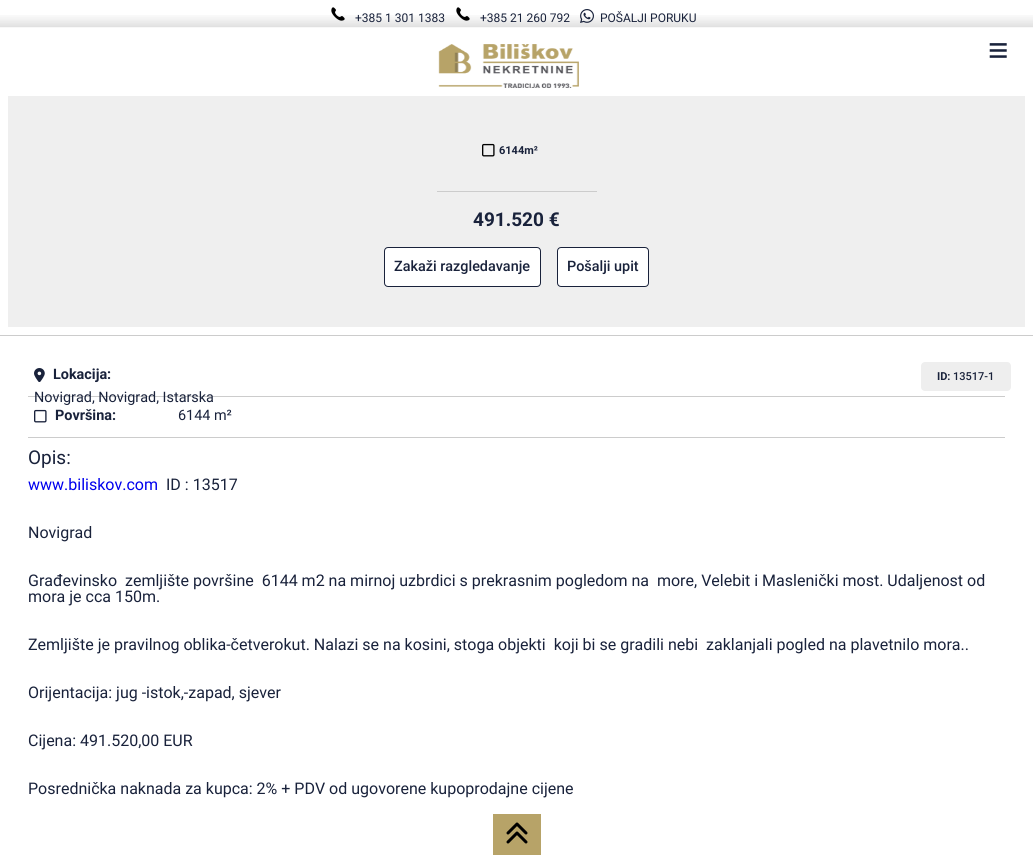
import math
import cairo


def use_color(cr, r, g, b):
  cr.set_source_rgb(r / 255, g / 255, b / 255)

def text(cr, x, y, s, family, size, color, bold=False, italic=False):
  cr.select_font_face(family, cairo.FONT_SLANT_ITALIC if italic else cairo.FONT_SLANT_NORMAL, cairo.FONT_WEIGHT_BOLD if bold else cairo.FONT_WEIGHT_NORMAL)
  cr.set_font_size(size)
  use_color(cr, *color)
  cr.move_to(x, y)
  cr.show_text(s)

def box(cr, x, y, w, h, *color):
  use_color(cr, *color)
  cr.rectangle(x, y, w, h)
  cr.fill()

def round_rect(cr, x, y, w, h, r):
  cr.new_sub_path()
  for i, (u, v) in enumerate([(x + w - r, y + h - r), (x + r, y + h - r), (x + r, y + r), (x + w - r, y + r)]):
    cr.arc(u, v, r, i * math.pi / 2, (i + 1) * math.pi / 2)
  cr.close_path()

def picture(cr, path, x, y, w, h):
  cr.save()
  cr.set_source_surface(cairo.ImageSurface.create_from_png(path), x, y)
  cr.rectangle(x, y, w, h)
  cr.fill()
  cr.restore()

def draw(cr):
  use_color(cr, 255, 255, 255)
  cr.paint()
  picture(cr, "img_01.png", 0, 15, 1033, 13)
  picture(cr, "img_02.png", 331, 7, 14, 14)
  picture(cr, "img_02.png", 456, 7, 14, 14)
  picture(cr, "img_03.png", 580, 9, 14, 14)
  picture(cr, "img_04.png", 438, 44, 141, 44)
  box(cr, 8, 96, 1017, 231, 239, 239, 239)
  picture(cr, "img_05.png", 482, 143, 13, 14)
  box(cr, 437, 191, 160, 1, 204, 204, 204)
  use_color(cr, 255, 255, 255)
  round_rect(cr, 384.5, 247.5, 156, 39, 3.5)
  cr.fill_preserve()
  use_color(cr, 25, 34, 59)
  cr.set_line_width(1)
  cr.stroke()
  use_color(cr, 255, 255, 255)
  round_rect(cr, 557.5, 247.5, 91, 39, 3.5)
  cr.fill_preserve()
  use_color(cr, 25, 34, 59)
  cr.stroke()
  box(cr, 0, 335, 1033, 1, 204, 204, 204)
  picture(cr, "img_06.png", 34, 368, 11, 14)
  use_color(cr, 238, 238, 238)
  round_rect(cr, 921, 362, 90, 29, 4)
  cr.fill()
  box(cr, 28, 396, 977, 1, 204, 204, 204)
  picture(cr, "img_07.png", 34, 409, 13, 14)
  box(cr, 28, 437, 977, 1, 204, 204, 204)
  box(cr, 493, 814, 48, 41, 183, 163, 104)
  cr.new_path()
  cr.move_to(508, 833)
  cr.line_to(517, 824)
  cr.line_to(526, 833)
  cr.move_to(508, 842)
  cr.line_to(517, 833)
  cr.line_to(526, 842)
  use_color(cr, 0, 0, 0)
  cr.set_line_width(3)
  cr.set_line_cap(cairo.LINE_CAP_ROUND)
  cr.set_line_join(cairo.LINE_JOIN_ROUND)
  cr.stroke()
  text(cr, 355, 22, "+385 1 301 1383", "Roboto", 12, (25, 34, 59))
  text(cr, 480, 22, "+385 21 260 792", "Roboto", 12, (25, 34, 59))
  text(cr, 600, 22, "POŠALJI PORUKU", "Roboto", 12, (25, 34, 59))
  text(cr, 988, 62, "≡", "Liberation Sans", 35, (25, 34, 59))
  text(cr, 499, 154, "6144m²", "Roboto", 11, (25, 34, 59), bold=True)
  text(cr, 473, 226, "491.520 €", "Roboto", 19, (25, 34, 59), bold=True)
  text(cr, 394, 271, "Zakaži razgledavanje", "Roboto Medium", 14.4, (25, 34, 59))
  text(cr, 567, 271, "Pošalji upit", "Roboto Medium", 14.4, (25, 34, 59))
  text(cr, 53, 379, "Lokacija:", "Roboto", 14.4, (25, 34, 59), bold=True)
  text(cr, 937, 380, "ID:", "Roboto", 11, (25, 34, 59), bold=True)
  text(cr, 953, 380, "13517-1", "Roboto Medium", 11, (25, 34, 59))
  text(cr, 34, 402, "Novigrad, Novigrad, Istarska", "Roboto", 14.4, (25, 34, 59))
  text(cr, 55, 420, "Površina:", "Roboto", 14.4, (25, 34, 59), bold=True)
  text(cr, 178, 420, "6144 m²", "Roboto", 14.4, (25, 34, 59))
  text(cr, 28, 464, "Opis:", "Roboto", 19, (25, 34, 59))
  text(cr, 28, 490, "www.biliskov.com", "Roboto", 16, (0, 0, 238))
  text(cr, 166, 490, "ID : 13517", "Roboto", 16, (25, 34, 59))
  text(cr, 28, 538, "Novigrad", "Roboto", 16, (25, 34, 59))
  text(cr, 28, 586, "Građevinsko  zemljište površine  6144 m2 na mirnoj uzbrdici s prekrasnim pogledom na  more, Velebit i Maslenički most. Udaljenost od", "Roboto", 16, (25, 34, 59))
  text(cr, 28, 602, "mora je cca 150m.", "Roboto", 16, (25, 34, 59))
  text(cr, 28, 650, "Zemljište je pravilnog oblika-četverokut. Nalazi se na kosini, stoga objekti  koji bi se gradili nebi  zaklanjali pogled na plavetnilo mora..", "Roboto", 16, (25, 34, 59))
  text(cr, 28, 698, "Orijentacija: jug -istok,-zapad, sjever", "Roboto", 16, (25, 34, 59))
  text(cr, 28, 746, "Cijena: 491.520,00 EUR", "Roboto", 16, (25, 34, 59))
  text(cr, 28, 794, "Posrednička naknada za kupca: 2% + PDV od ugovorene kupoprodajne cijene", "Roboto", 16, (25, 34, 59))


surface = cairo.ImageSurface(cairo.FORMAT_RGB24, 1033, 863)
cr = cairo.Context(surface)
options = cairo.FontOptions()
options.set_hint_metrics(cairo.HINT_METRICS_OFF)
options.set_hint_style(cairo.HINT_STYLE_NONE)
cr.set_font_options(options)
cr.set_miter_limit(4)
draw(cr)
surface.write_to_png("out.png")
